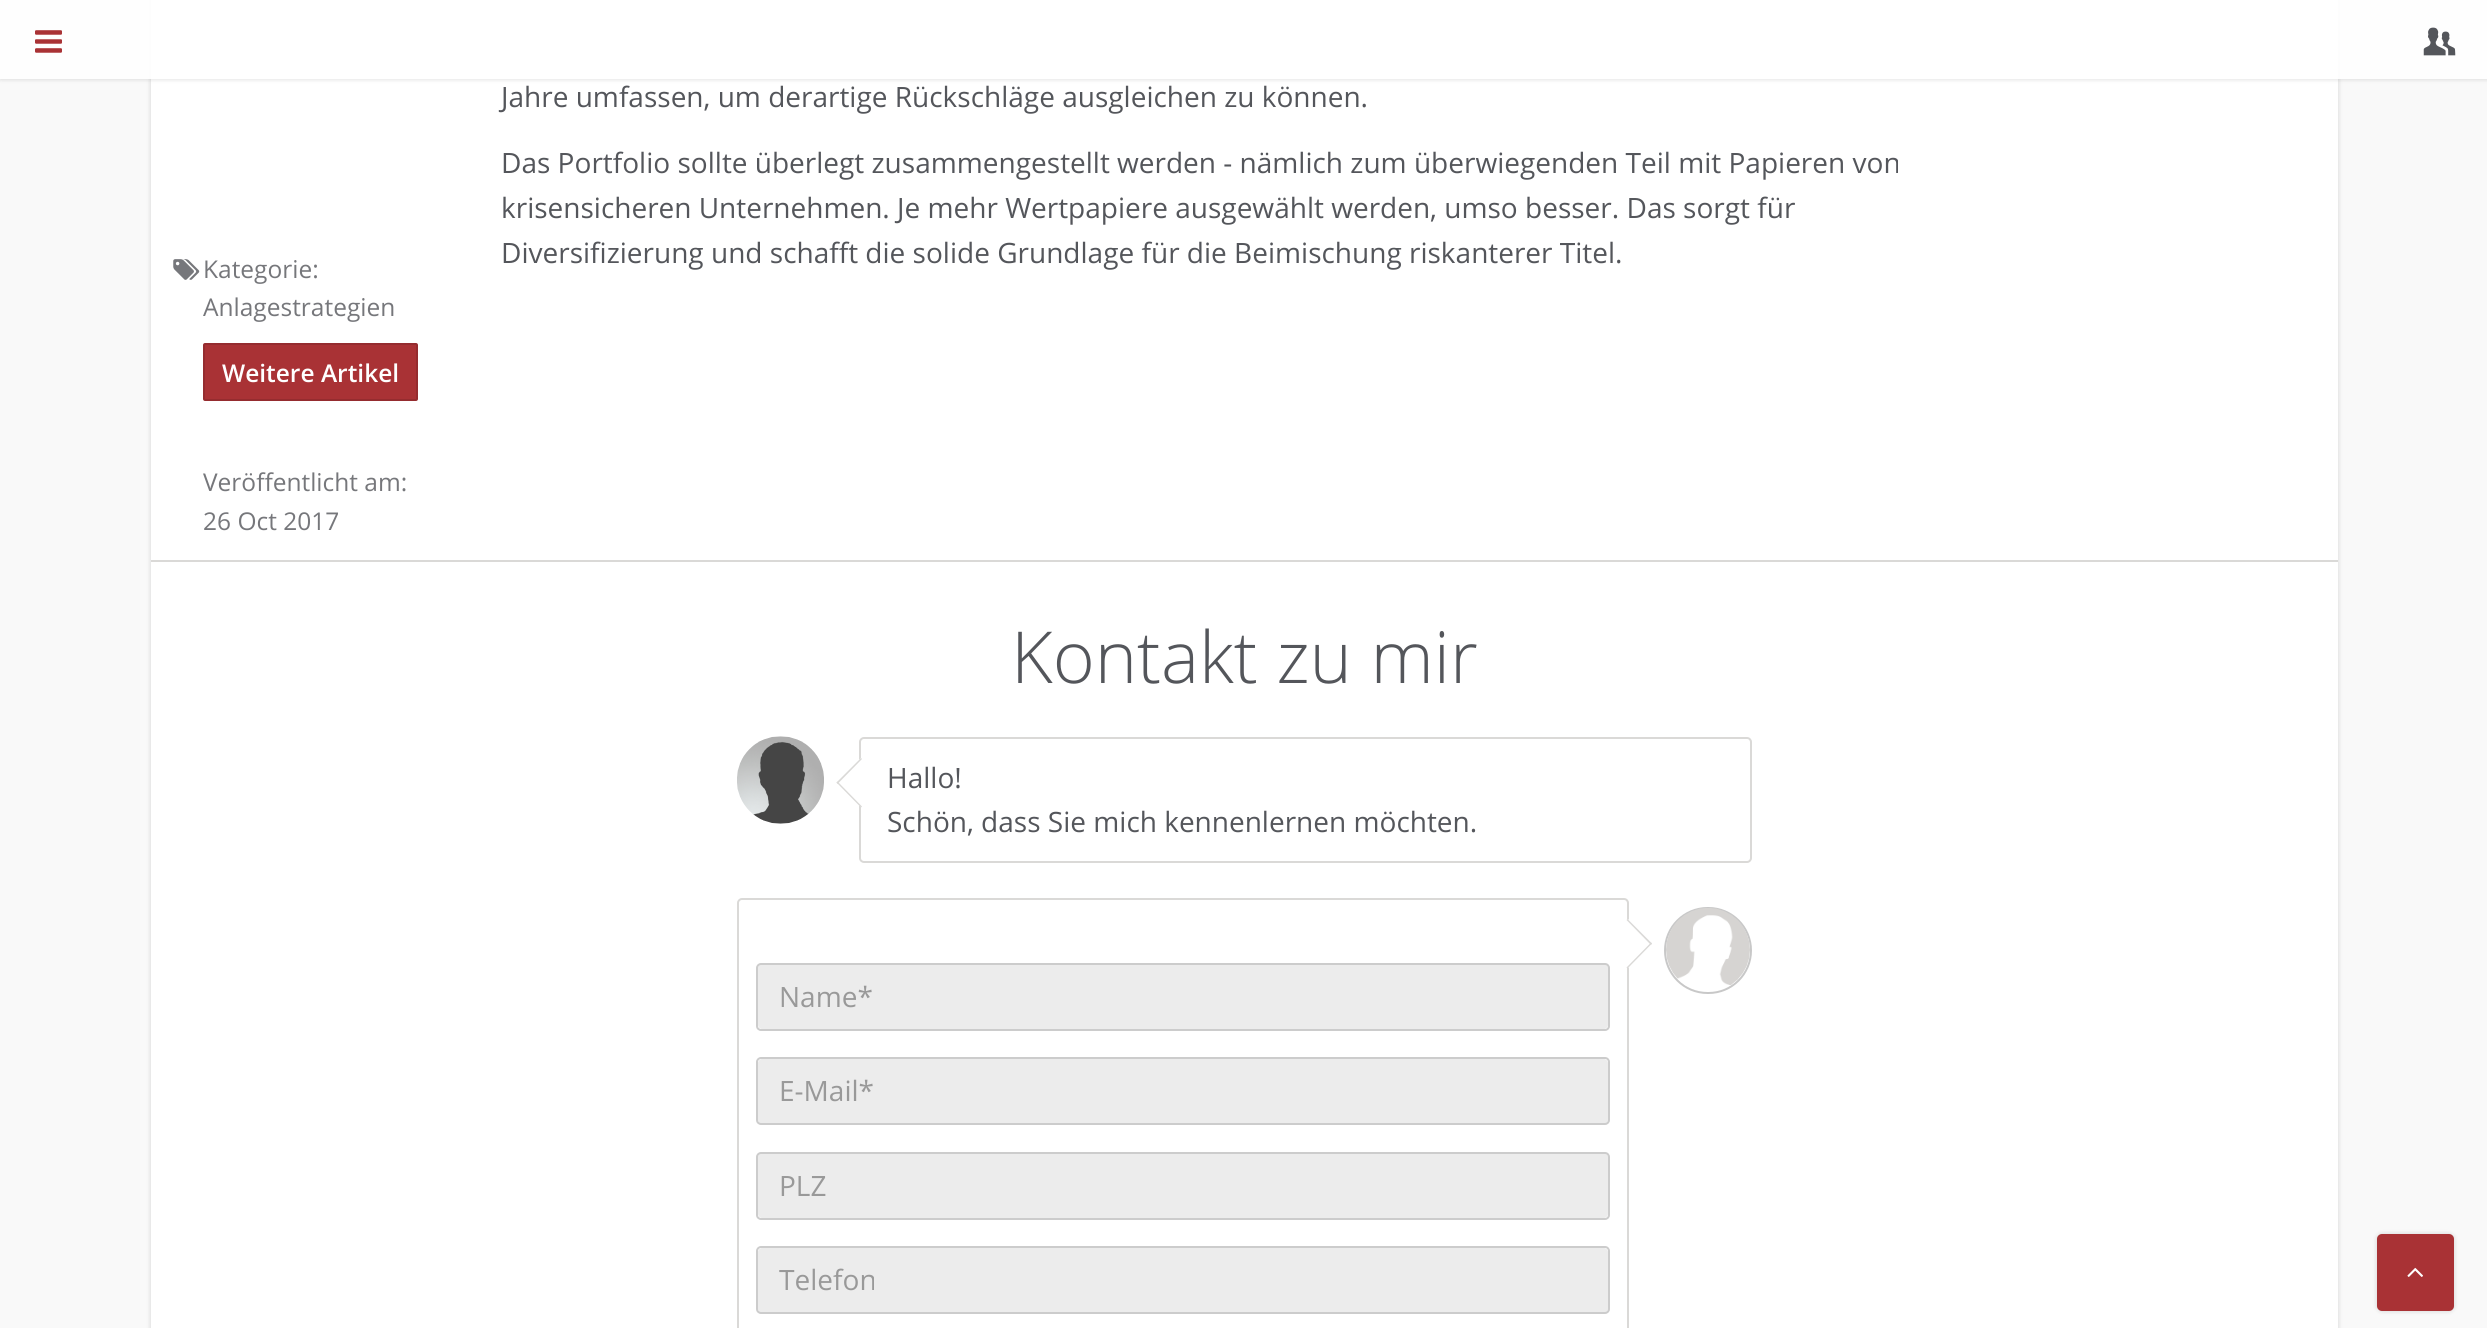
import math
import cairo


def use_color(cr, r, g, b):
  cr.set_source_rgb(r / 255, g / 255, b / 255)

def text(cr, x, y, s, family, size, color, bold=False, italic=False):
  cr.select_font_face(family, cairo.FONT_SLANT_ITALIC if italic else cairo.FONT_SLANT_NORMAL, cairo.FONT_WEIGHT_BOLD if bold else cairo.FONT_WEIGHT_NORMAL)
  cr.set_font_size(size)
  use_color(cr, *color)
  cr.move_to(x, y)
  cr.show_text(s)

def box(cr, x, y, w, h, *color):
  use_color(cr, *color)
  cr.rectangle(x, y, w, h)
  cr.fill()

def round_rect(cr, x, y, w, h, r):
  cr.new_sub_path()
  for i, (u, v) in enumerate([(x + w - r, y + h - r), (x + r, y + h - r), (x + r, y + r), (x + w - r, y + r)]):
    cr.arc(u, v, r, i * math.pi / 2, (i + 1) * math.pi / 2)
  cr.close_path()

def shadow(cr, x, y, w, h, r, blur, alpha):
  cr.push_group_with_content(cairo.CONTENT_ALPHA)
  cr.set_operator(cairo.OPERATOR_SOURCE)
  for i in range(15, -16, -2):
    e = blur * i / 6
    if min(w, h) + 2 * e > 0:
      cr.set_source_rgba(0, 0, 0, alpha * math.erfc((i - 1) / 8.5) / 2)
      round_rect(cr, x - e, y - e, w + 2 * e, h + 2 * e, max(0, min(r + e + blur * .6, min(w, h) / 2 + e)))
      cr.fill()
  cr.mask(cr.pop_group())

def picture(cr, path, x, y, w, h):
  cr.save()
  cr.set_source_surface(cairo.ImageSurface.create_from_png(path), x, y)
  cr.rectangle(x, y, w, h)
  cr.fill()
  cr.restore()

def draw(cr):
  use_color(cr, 249, 249, 249)
  cr.paint()
  use_color(cr, 0, 0, 0)
  shadow(cr, 151, -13, 2187, 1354, 5, 2.5, 0.15)
  box(cr, 151, 0, 2187, 1328, 255, 255, 255)
  cr.save()
  cr.set_fill_rule(cairo.FILL_RULE_EVEN_ODD)
  cr.new_path()
  cr.move_to(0, 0)
  cr.line_to(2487, 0)
  cr.line_to(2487, 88)
  cr.line_to(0, 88)
  cr.close_path()
  cr.move_to(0, 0)
  cr.line_to(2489, 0)
  cr.line_to(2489, 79)
  cr.line_to(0, 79)
  cr.close_path()
  cr.clip()
  use_color(cr, 0, 0, 0)
  shadow(cr, 0, 0, 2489, 79, 0, 2.5, 0.15)
  cr.restore()
  cr.set_source_rgba(1, 1, 1, 0.9)
  cr.rectangle(0, 0, 2487, 79)
  cr.fill()
  picture(cr, "img_01.png", 35, 30, 27, 23)
  picture(cr, "img_02.png", 2423, 27, 33, 29)
  box(cr, 151, 560, 2187, 2, 218, 217, 215)
  picture(cr, "img_03.png", 173, 259, 27, 21)
  use_color(cr, 169, 50, 53)
  round_rect(cr, 204, 344, 213, 56, 1)
  cr.fill_preserve()
  use_color(cr, 149, 44, 47)
  cr.stroke()
  picture(cr, "img_04.png", 737, 736, 87, 88)
  round_rect(cr, 860, 738, 891, 124, 4)
  use_color(cr, 218, 217, 215)
  cr.stroke()
  use_color(cr, 255, 255, 255)
  cr.new_path()
  cr.move_to(861, 758)
  cr.line_to(886, 783)
  cr.line_to(861, 807)
  cr.line_to(836, 783)
  cr.close_path()
  cr.fill()
  use_color(cr, 218, 217, 215)
  cr.new_path()
  cr.move_to(837.5, 781.5)
  cr.line_to(862, 806.5)
  cr.line_to(861, 807.5)
  cr.line_to(836.5, 782.5)
  cr.close_path()
  cr.fill()
  cr.new_path()
  cr.move_to(861, 758)
  cr.line_to(862, 759)
  cr.line_to(837.5, 784)
  cr.line_to(836.5, 782.5)
  cr.close_path()
  cr.fill()
  round_rect(cr, 1665, 908, 86, 85, 42.5)
  use_color(cr, 200, 200, 200)
  cr.stroke()
  picture(cr, "img_05.png", 1666, 908, 84, 78)
  round_rect(cr, 738, 899, 890, 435, 4)
  use_color(cr, 218, 217, 215)
  cr.stroke()
  use_color(cr, 255, 255, 255)
  cr.new_path()
  cr.move_to(1628, 919)
  cr.line_to(1652, 944)
  cr.line_to(1628, 968)
  cr.line_to(1603, 944)
  cr.close_path()
  cr.fill()
  use_color(cr, 218, 217, 215)
  cr.new_path()
  cr.move_to(1627.5, 919)
  cr.line_to(1652, 943.5)
  cr.line_to(1651, 945)
  cr.line_to(1626.5, 920)
  cr.close_path()
  cr.fill()
  cr.new_path()
  cr.move_to(1651, 942.5)
  cr.line_to(1652, 943.5)
  cr.line_to(1627.5, 968.5)
  cr.line_to(1626.5, 967.5)
  cr.close_path()
  cr.fill()
  use_color(cr, 236, 236, 236)
  cr.new_path()
  cr.move_to(762, 964)
  cr.curve_to(760, 964, 758, 966, 758, 968)
  cr.line_to(758, 1025)
  cr.curve_to(758, 1027, 760, 1029, 762, 1029)
  cr.line_to(1604, 1029)
  cr.curve_to(1606, 1029, 1608, 1027, 1608, 1025)
  cr.line_to(1608, 968)
  cr.curve_to(1608, 966, 1606, 964, 1604, 964)
  cr.close_path()
  cr.fill()
  round_rect(cr, 757, 964, 852, 66, 4)
  use_color(cr, 204, 204, 204)
  cr.stroke()
  use_color(cr, 236, 236, 236)
  cr.new_path()
  cr.move_to(762, 1059)
  cr.curve_to(760, 1059, 758, 1061, 758, 1063)
  cr.line_to(758, 1120)
  cr.curve_to(758, 1122, 760, 1124, 762, 1124)
  cr.line_to(1604, 1124)
  cr.curve_to(1606, 1124, 1608, 1122, 1608, 1120)
  cr.line_to(1608, 1063)
  cr.curve_to(1608, 1061, 1606, 1059, 1604, 1059)
  cr.close_path()
  cr.fill()
  round_rect(cr, 757, 1058, 852, 66, 4)
  use_color(cr, 204, 204, 204)
  cr.stroke()
  use_color(cr, 236, 236, 236)
  cr.new_path()
  cr.move_to(762, 1153)
  cr.curve_to(760, 1153, 758, 1155, 758, 1157)
  cr.line_to(758, 1214)
  cr.curve_to(758, 1216, 760, 1218, 762, 1218)
  cr.line_to(1604, 1218)
  cr.curve_to(1606, 1218, 1608, 1216, 1608, 1214)
  cr.line_to(1608, 1157)
  cr.curve_to(1608, 1155, 1606, 1153, 1604, 1153)
  cr.close_path()
  cr.fill()
  round_rect(cr, 757, 1153, 852, 66, 4)
  use_color(cr, 204, 204, 204)
  cr.stroke()
  use_color(cr, 236, 236, 236)
  cr.new_path()
  cr.move_to(762, 1248)
  cr.curve_to(760, 1248, 758, 1250, 758, 1252)
  cr.line_to(758, 1309)
  cr.curve_to(758, 1311, 760, 1313, 762, 1313)
  cr.line_to(1604, 1313)
  cr.curve_to(1606, 1313, 1608, 1311, 1608, 1309)
  cr.line_to(1608, 1252)
  cr.curve_to(1608, 1250, 1606, 1248, 1604, 1248)
  cr.close_path()
  cr.fill()
  round_rect(cr, 757, 1247, 852, 66, 4)
  use_color(cr, 204, 204, 204)
  cr.stroke()
  use_color(cr, 0, 0, 0)
  shadow(cr, 2377, 1234, 77, 77, 5, 2.5, 0.15)
  use_color(cr, 169, 50, 53)
  round_rect(cr, 2377, 1234, 77, 77, 5)
  cr.fill()
  picture(cr, "img_06.png", 2407, 1267, 16, 10)
  text(cr, 501, 107, "Jahre umfassen, um derartige Rückschläge ausgleichen zu können.", "Open Sans", 28, (84, 86, 91))
  text(cr, 501, 173, "Das Portfolio sollte überlegt zusammengestellt werden - nämlich zum überwiegenden Teil mit Papieren von", "Open Sans", 28, (84, 86, 91))
  text(cr, 501, 218, "krisensicheren Unternehmen. Je mehr Wertpapiere ausgewählt werden, umso besser. Das sorgt für", "Open Sans", 28, (84, 86, 91))
  text(cr, 501, 263, "Diversifizierung und schafft die solide Grundlage für die Beimischung riskanterer Titel.", "Open Sans", 28, (84, 86, 91))
  text(cr, 203, 278, "Kategorie:", "Open Sans", 24.5, (118, 119, 123))
  text(cr, 203, 316, "Anlagestrategien", "Open Sans", 24.5, (118, 119, 123))
  text(cr, 222, 382, "Weitere Artikel", "Open Sans SemiBold", 24.5, (255, 255, 255))
  text(cr, 203, 491, "Veröffentlicht am:", "Open Sans", 24.5, (118, 119, 123))
  text(cr, 203, 530, "26 Oct 2017", "Open Sans", 24.5, (118, 119, 123))
  text(cr, 1011, 683, "Kontakt zu mir", "Open Sans Light", 71.75, (84, 86, 91))
  text(cr, 887, 788, "Hallo!", "Open Sans", 28, (84, 86, 91))
  text(cr, 887, 832, "Schön, dass Sie mich kennenlernen möchten.", "Open Sans", 28, (84, 86, 91))
  text(cr, 779, 1007, "Name*", "Open Sans", 28, (153, 153, 153))
  text(cr, 779, 1101, "E-Mail*", "Open Sans", 28, (153, 153, 153))
  text(cr, 779, 1196, "PLZ", "Open Sans", 28, (153, 153, 153))
  text(cr, 779, 1290, "Telefon", "Open Sans", 28, (153, 153, 153))


surface = cairo.ImageSurface(cairo.FORMAT_RGB24, 2487, 1328)
cr = cairo.Context(surface)
options = cairo.FontOptions()
options.set_hint_metrics(cairo.HINT_METRICS_OFF)
options.set_hint_style(cairo.HINT_STYLE_NONE)
cr.set_font_options(options)
cr.set_miter_limit(4)
draw(cr)
surface.write_to_png("out.png")
